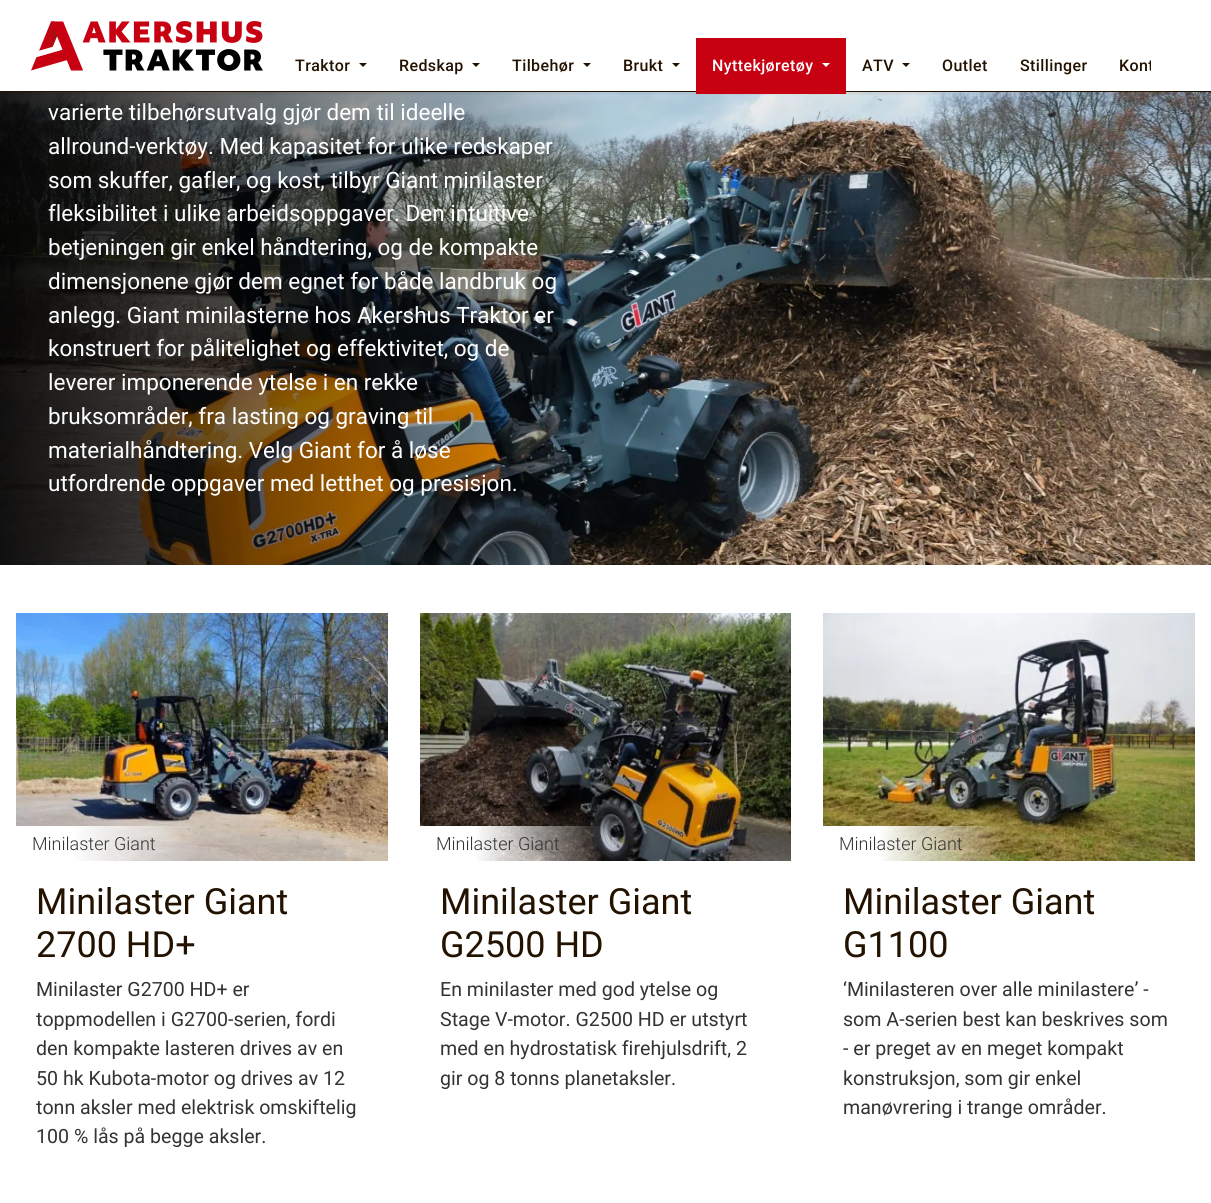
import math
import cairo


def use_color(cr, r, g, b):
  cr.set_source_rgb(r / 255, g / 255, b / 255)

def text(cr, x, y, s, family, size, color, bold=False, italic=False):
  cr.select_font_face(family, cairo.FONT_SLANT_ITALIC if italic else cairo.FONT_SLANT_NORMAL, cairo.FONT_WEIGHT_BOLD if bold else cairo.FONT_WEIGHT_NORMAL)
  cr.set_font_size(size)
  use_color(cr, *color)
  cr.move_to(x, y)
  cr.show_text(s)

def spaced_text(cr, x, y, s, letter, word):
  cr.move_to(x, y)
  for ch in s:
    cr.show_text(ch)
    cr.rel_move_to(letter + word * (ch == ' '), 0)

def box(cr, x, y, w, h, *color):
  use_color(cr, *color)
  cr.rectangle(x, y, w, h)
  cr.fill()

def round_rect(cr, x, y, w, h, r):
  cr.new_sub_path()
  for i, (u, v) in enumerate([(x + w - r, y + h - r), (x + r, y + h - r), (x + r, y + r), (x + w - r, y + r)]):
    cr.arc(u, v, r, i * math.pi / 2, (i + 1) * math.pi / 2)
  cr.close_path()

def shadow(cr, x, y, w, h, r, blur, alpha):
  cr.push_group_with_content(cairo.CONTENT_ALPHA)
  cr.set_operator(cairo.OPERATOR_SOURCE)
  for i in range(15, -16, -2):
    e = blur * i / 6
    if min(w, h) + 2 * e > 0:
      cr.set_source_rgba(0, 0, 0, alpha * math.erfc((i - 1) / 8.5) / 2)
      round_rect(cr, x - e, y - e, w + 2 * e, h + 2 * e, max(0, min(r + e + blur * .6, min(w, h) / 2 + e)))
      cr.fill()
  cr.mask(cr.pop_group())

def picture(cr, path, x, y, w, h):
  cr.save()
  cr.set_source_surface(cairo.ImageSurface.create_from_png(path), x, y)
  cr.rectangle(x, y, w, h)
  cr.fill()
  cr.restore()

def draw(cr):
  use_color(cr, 255, 255, 255)
  cr.paint()
  picture(cr, "img_02.png", 0, 92, 1211, 473)
  cr.save()
  cr.rectangle(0, 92, 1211, 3)
  cr.clip()
  use_color(cr, 0, 0, 0)
  shadow(cr, 0, 2, 1211, 92, 0, 2, 0.07)
  cr.restore()
  box(cr, 0, 91, 1211, 1, 35, 18, 0)
  picture(cr, "img_01.png", 31, 21, 232, 50)
  cr.new_path()
  cr.move_to(359, 63)
  cr.line_to(367, 63)
  cr.line_to(363, 67)
  cr.close_path()
  cr.fill()
  cr.new_path()
  cr.move_to(472, 63)
  cr.line_to(480, 63)
  cr.line_to(476, 67)
  cr.close_path()
  cr.fill()
  cr.new_path()
  cr.move_to(583, 63)
  cr.line_to(591, 63)
  cr.line_to(587, 67)
  cr.close_path()
  cr.fill()
  cr.new_path()
  cr.move_to(672, 63)
  cr.line_to(680, 63)
  cr.line_to(676, 67)
  cr.close_path()
  cr.fill()
  box(cr, 696, 38, 150, 56, 200, 1, 18)
  use_color(cr, 255, 255, 255)
  cr.new_path()
  cr.move_to(822, 63)
  cr.line_to(830, 63)
  cr.line_to(826, 67)
  cr.close_path()
  cr.fill()
  use_color(cr, 35, 18, 0)
  cr.new_path()
  cr.move_to(902, 63)
  cr.line_to(910, 63)
  cr.line_to(906, 67)
  cr.close_path()
  cr.fill()
  picture(cr, "img_03.png", 16, 613, 372, 248)
  picture(cr, "img_04.png", 420, 613, 371, 248)
  picture(cr, "img_05.png", 823, 613, 372, 248)
  cr.select_font_face("Roboto Medium")
  cr.set_font_size(16)
  spaced_text(cr, 295, 71, "Traktor", 0.4, 0)
  spaced_text(cr, 399, 71, "Redskap", 0.4, 0)
  spaced_text(cr, 512, 71, "Tilbehør", 0.4, 0)
  spaced_text(cr, 623, 71, "Brukt", 0.4, 0)
  use_color(cr, 255, 255, 255)
  spaced_text(cr, 712, 71, "Nyttekjøretøy", 0.4, 0)
  use_color(cr, 35, 18, 0)
  spaced_text(cr, 862, 71, "ATV", 0.4, 0)
  spaced_text(cr, 942, 71, "Outlet", 0.4, 0)
  spaced_text(cr, 1020, 71, "Stillinger", 0.4, 0)
  spaced_text(cr, 1119, 71, "Kont", 0.4, 0)
  box(cr, 1151, 60, 3, 12, 255, 255, 255)
  text(cr, 48, 120, "varierte tilbehørsutvalg gjør dem til ideelle", "Roboto", 22.5, (255, 255, 255))
  text(cr, 48, 154, "allround-verktøy. Med kapasitet for ulike redskaper", "Roboto", 22.5, (255, 255, 255))
  text(cr, 48, 188, "som skuffer, gafler, og kost, tilbyr Giant minilaster", "Roboto", 22.5, (255, 255, 255))
  text(cr, 48, 221, "fleksibilitet i ulike arbeidsoppgaver. Den intuitive", "Roboto", 22.5, (255, 255, 255))
  text(cr, 48, 255, "betjeningen gir enkel håndtering, og de kompakte", "Roboto", 22.5, (255, 255, 255))
  text(cr, 48, 289, "dimensjonene gjør dem egnet for både landbruk og", "Roboto", 22.5, (255, 255, 255))
  text(cr, 48, 323, "anlegg. Giant minilasterne hos Akershus Traktor er", "Roboto", 22.5, (255, 255, 255))
  text(cr, 48, 356, "konstruert for pålitelighet og effektivitet, og de", "Roboto", 22.5, (255, 255, 255))
  text(cr, 48, 390, "leverer imponerende ytelse i en rekke", "Roboto", 22.5, (255, 255, 255))
  text(cr, 48, 424, "bruksområder, fra lasting og graving til", "Roboto", 22.5, (255, 255, 255))
  text(cr, 48, 458, "materialhåndtering. Velg Giant for å løse", "Roboto", 22.5, (255, 255, 255))
  text(cr, 48, 491, "utfordrende oppgaver med letthet og presisjon.", "Roboto", 22.5, (255, 255, 255))
  text(cr, 32, 850, "Minilaster Giant", "Roboto Light", 18, (51, 51, 51))
  text(cr, 36, 914, "Minilaster Giant", "Roboto", 36, (35, 18, 0))
  text(cr, 36, 957, "2700 HD+", "Roboto", 36, (35, 18, 0))
  text(cr, 36, 996, "Minilaster G2700 HD+ er", "Roboto", 19.6, (51, 51, 51))
  text(cr, 36, 1026, "toppmodellen i G2700-serien, fordi", "Roboto", 19.6, (51, 51, 51))
  text(cr, 36, 1055, "den kompakte lasteren drives av en", "Roboto", 19.6, (51, 51, 51))
  text(cr, 36, 1085, "50 hk Kubota-motor og drives av 12", "Roboto", 19.6, (51, 51, 51))
  text(cr, 36, 1114, "tonn aksler med elektrisk omskiftelig", "Roboto", 19.6, (51, 51, 51))
  text(cr, 36, 1143, "100 % lås på begge aksler.", "Roboto", 19.6, (51, 51, 51))
  text(cr, 436, 850, "Minilaster Giant", "Roboto Light", 18, (51, 51, 51))
  text(cr, 440, 914, "Minilaster Giant", "Roboto", 36, (35, 18, 0))
  text(cr, 440, 957, "G2500 HD", "Roboto", 36, (35, 18, 0))
  text(cr, 440, 996, "En minilaster med god ytelse og", "Roboto", 19.6, (51, 51, 51))
  text(cr, 440, 1026, "Stage V-motor. G2500 HD er utstyrt", "Roboto", 19.6, (51, 51, 51))
  text(cr, 440, 1055, "med en hydrostatisk firehjulsdrift, 2", "Roboto", 19.6, (51, 51, 51))
  text(cr, 440, 1085, "gir og 8 tonns planetaksler.", "Roboto", 19.6, (51, 51, 51))
  text(cr, 839, 850, "Minilaster Giant", "Roboto Light", 18, (51, 51, 51))
  text(cr, 843, 914, "Minilaster Giant", "Roboto", 36, (35, 18, 0))
  text(cr, 843, 957, "G1100", "Roboto", 36, (35, 18, 0))
  text(cr, 843, 996, "‘Minilasteren over alle minilastere’ -", "Roboto", 19.6, (51, 51, 51))
  text(cr, 843, 1026, "som A-serien best kan beskrives som", "Roboto", 19.6, (51, 51, 51))
  text(cr, 843, 1055, "- er preget av en meget kompakt", "Roboto", 19.6, (51, 51, 51))
  text(cr, 843, 1085, "konstruksjon, som gir enkel", "Roboto", 19.6, (51, 51, 51))
  text(cr, 843, 1114, "manøvrering i trange områder.", "Roboto", 19.6, (51, 51, 51))


surface = cairo.ImageSurface(cairo.FORMAT_RGB24, 1211, 1203)
cr = cairo.Context(surface)
options = cairo.FontOptions()
options.set_hint_metrics(cairo.HINT_METRICS_OFF)
options.set_hint_style(cairo.HINT_STYLE_NONE)
cr.set_font_options(options)
cr.set_miter_limit(4)
draw(cr)
surface.write_to_png("out.png")
